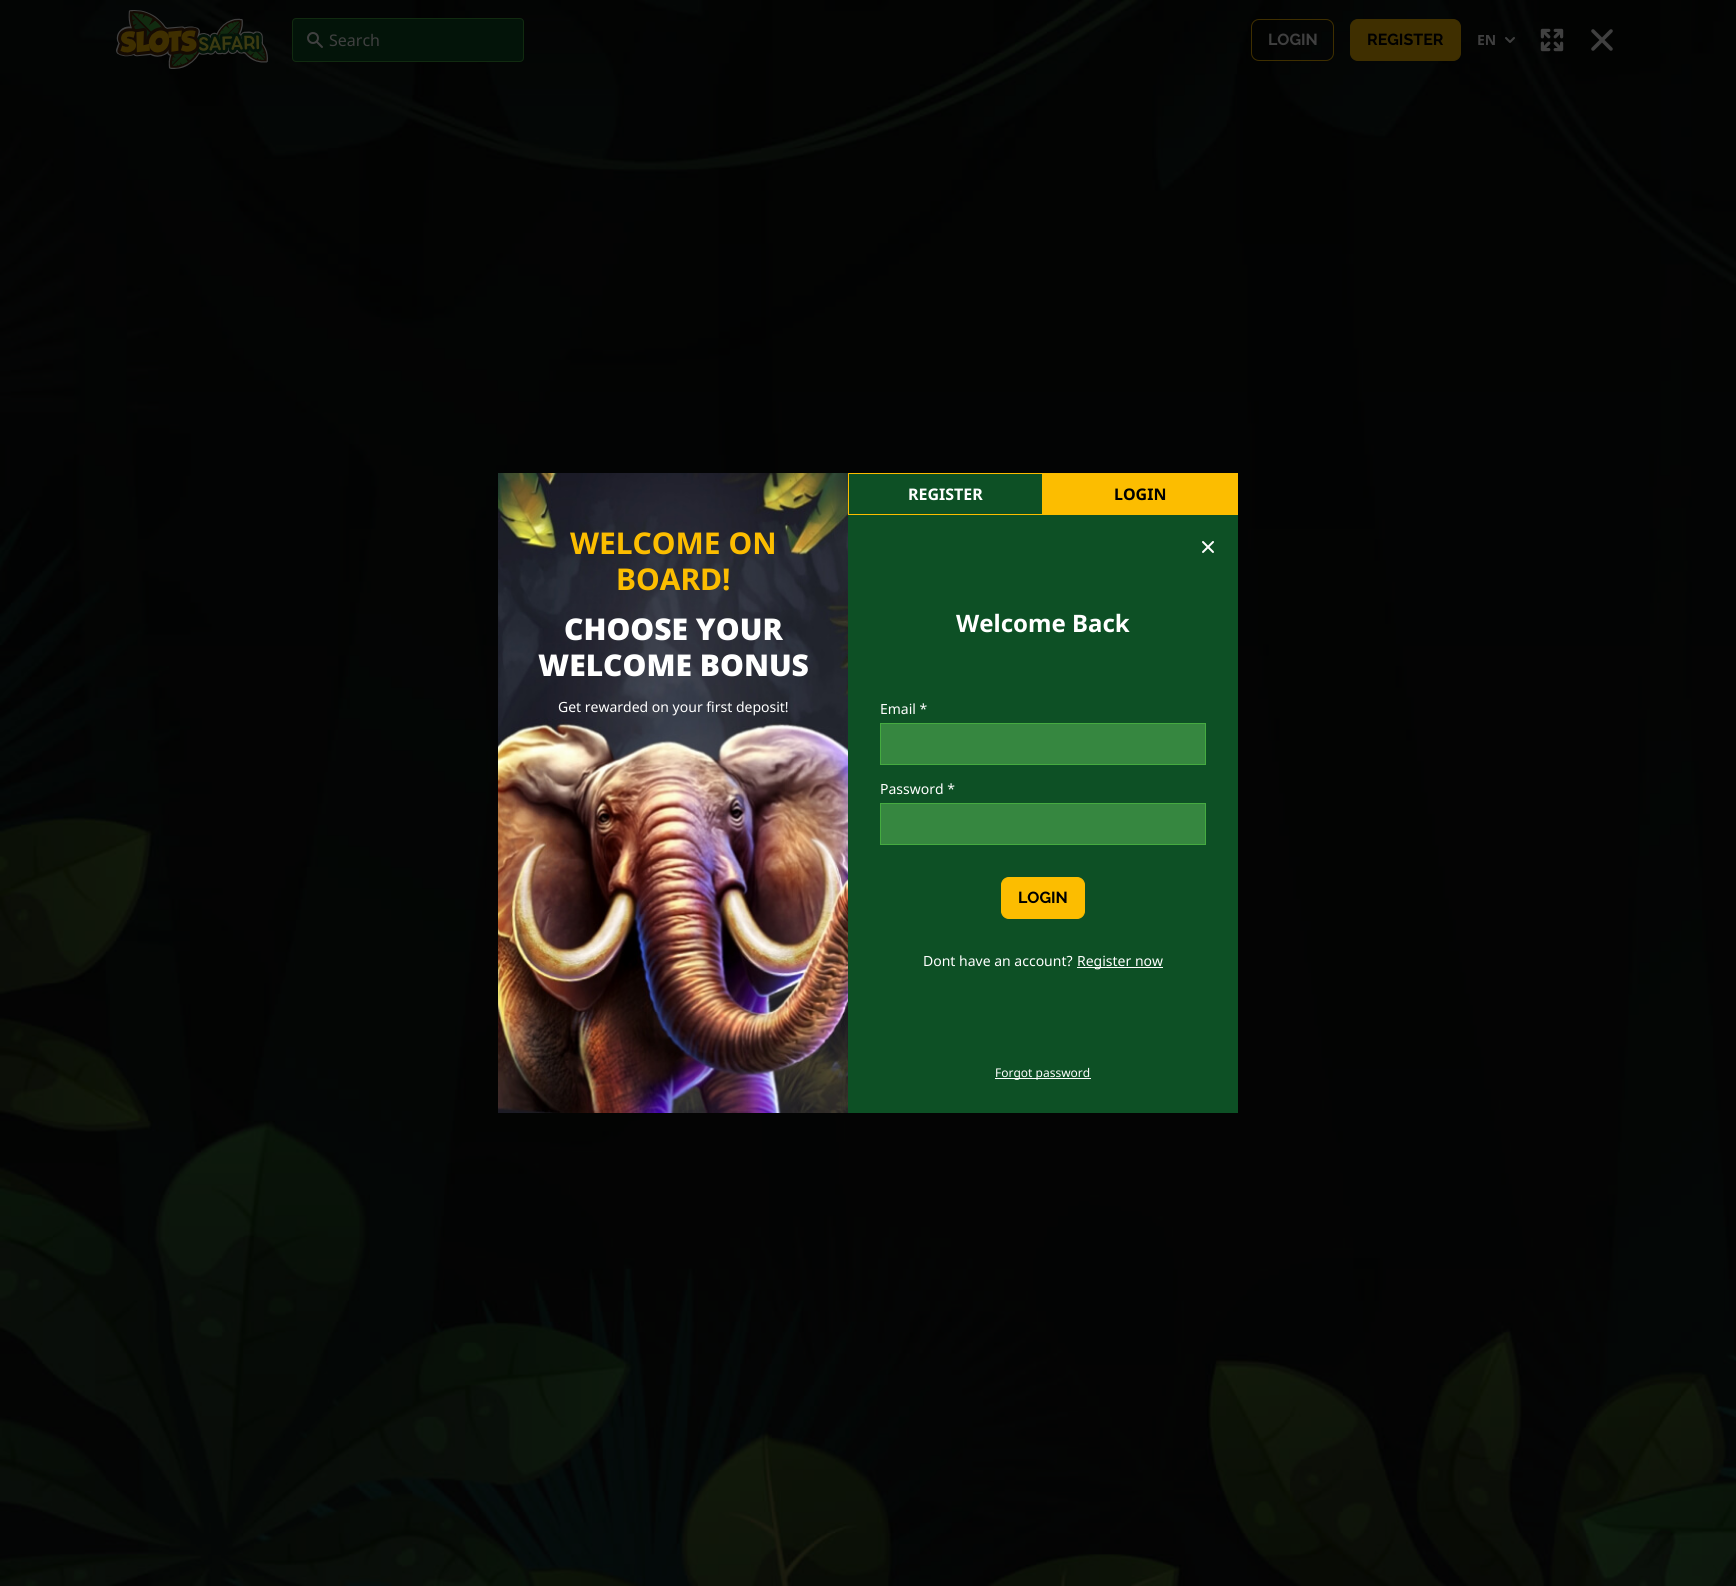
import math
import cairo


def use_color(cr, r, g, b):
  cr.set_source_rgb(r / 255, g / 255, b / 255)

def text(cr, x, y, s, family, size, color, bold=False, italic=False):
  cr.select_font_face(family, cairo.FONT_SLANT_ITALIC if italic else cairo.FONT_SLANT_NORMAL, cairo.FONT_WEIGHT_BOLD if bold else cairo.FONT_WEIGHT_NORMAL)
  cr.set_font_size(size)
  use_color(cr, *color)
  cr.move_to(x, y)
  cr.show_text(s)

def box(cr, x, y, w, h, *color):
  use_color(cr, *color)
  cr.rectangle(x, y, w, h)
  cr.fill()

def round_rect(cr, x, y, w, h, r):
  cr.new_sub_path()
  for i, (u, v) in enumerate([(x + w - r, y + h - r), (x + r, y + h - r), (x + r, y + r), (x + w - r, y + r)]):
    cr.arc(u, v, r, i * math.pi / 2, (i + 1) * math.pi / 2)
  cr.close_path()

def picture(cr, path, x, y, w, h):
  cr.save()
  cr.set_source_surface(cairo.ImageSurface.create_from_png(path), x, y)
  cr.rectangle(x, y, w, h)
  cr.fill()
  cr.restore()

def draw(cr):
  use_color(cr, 255, 255, 255)
  cr.paint()
  picture(cr, "img_01.png", 0, 0, 1736, 1586)
  picture(cr, "img_02.png", 116, 10, 152, 59)
  use_color(cr, 3, 20, 9)
  round_rect(cr, 292.5, 18.5, 231, 43, 3.5)
  cr.fill_preserve()
  use_color(cr, 17, 43, 16)
  cr.set_line_width(1)
  cr.stroke()
  picture(cr, "img_03.png", 307, 32, 16, 16)
  round_rect(cr, 1251.5, 19.5, 82, 41, 7.5)
  use_color(cr, 63, 47, 0)
  cr.stroke()
  round_rect(cr, 1350.5, 19.5, 110, 41, 7.5)
  cr.fill_preserve()
  cr.stroke()
  picture(cr, "img_04.png", 1505, 37, 10, 6)
  picture(cr, "img_05.png", 1540, 28, 24, 24)
  picture(cr, "img_06.png", 1591, 29, 22, 22)
  box(cr, 848, 474, 390, 639, 13, 80, 37)
  picture(cr, "img_07.png", 498, 473, 350, 640)
  cr.rectangle(848.5, 473.5, 194, 41)
  use_color(cr, 252, 189, 0)
  cr.stroke()
  box(cr, 1043, 473, 195, 42, 252, 189, 0)
  use_color(cr, 54, 135, 64)
  cr.rectangle(880.5, 723.5, 325, 41)
  cr.fill_preserve()
  use_color(cr, 69, 171, 64)
  cr.stroke()
  use_color(cr, 54, 135, 64)
  cr.rectangle(880.5, 803.5, 325, 41)
  cr.fill_preserve()
  use_color(cr, 69, 171, 64)
  cr.stroke()
  use_color(cr, 252, 189, 0)
  round_rect(cr, 1001.5, 877.5, 83, 41, 7.5)
  cr.fill_preserve()
  cr.stroke()
  box(cr, 1077, 967, 86, 1, 255, 255, 255)
  box(cr, 995, 1078, 96, 1, 255, 255, 255)
  picture(cr, "img_08.png", 1202, 541, 12, 12)
  text(cr, 329, 46, "Search", "Noto Sans", 16, (64, 64, 64))
  text(cr, 1268, 45, "LOGIN", "Raleway", 16, (64, 64, 64), bold=True)
  text(cr, 1367, 45, "REGISTER", "Raleway", 16, (0, 0, 0), bold=True)
  text(cr, 1477, 45, "EN", "Noto Sans", 14, (64, 64, 64), bold=True)
  text(cr, 570, 554, "WELCOME ON", "Noto Sans", 30, (252, 189, 0), bold=True)
  text(cr, 616, 590, "BOARD!", "Noto Sans", 30, (252, 189, 0), bold=True)
  text(cr, 564, 640, "CHOOSE YOUR", "Noto Sans Black", 30, (255, 255, 255))
  text(cr, 538, 676, "WELCOME BONUS", "Noto Sans Black", 30, (255, 255, 255))
  text(cr, 558, 712, "Get rewarded on your first deposit!", "Noto Sans", 14, (255, 255, 255))
  text(cr, 908, 500, "REGISTER", "Noto Sans", 16, (255, 255, 255), bold=True)
  text(cr, 1114, 500, "LOGIN", "Noto Sans", 16, (0, 0, 0), bold=True)
  text(cr, 956, 632, "Welcome Back", "Noto Sans", 24, (255, 255, 255), bold=True)
  text(cr, 880, 714, "Email *", "Noto Sans", 14, (255, 255, 255))
  text(cr, 880, 794, "Password *", "Noto Sans", 14, (255, 255, 255))
  text(cr, 1018, 903, "LOGIN", "Raleway", 16, (0, 0, 0), bold=True)
  text(cr, 923, 966, "Dont have an account?", "Noto Sans", 14, (255, 255, 255))
  text(cr, 1077, 966, "Register now", "Noto Sans", 14, (255, 255, 255))
  text(cr, 995, 1077, "Forgot password", "Noto Sans", 12, (255, 255, 255))


surface = cairo.ImageSurface(cairo.FORMAT_RGB24, 1736, 1586)
cr = cairo.Context(surface)
options = cairo.FontOptions()
options.set_hint_metrics(cairo.HINT_METRICS_OFF)
options.set_hint_style(cairo.HINT_STYLE_NONE)
cr.set_font_options(options)
cr.set_miter_limit(4)
draw(cr)
surface.write_to_png("out.png")
